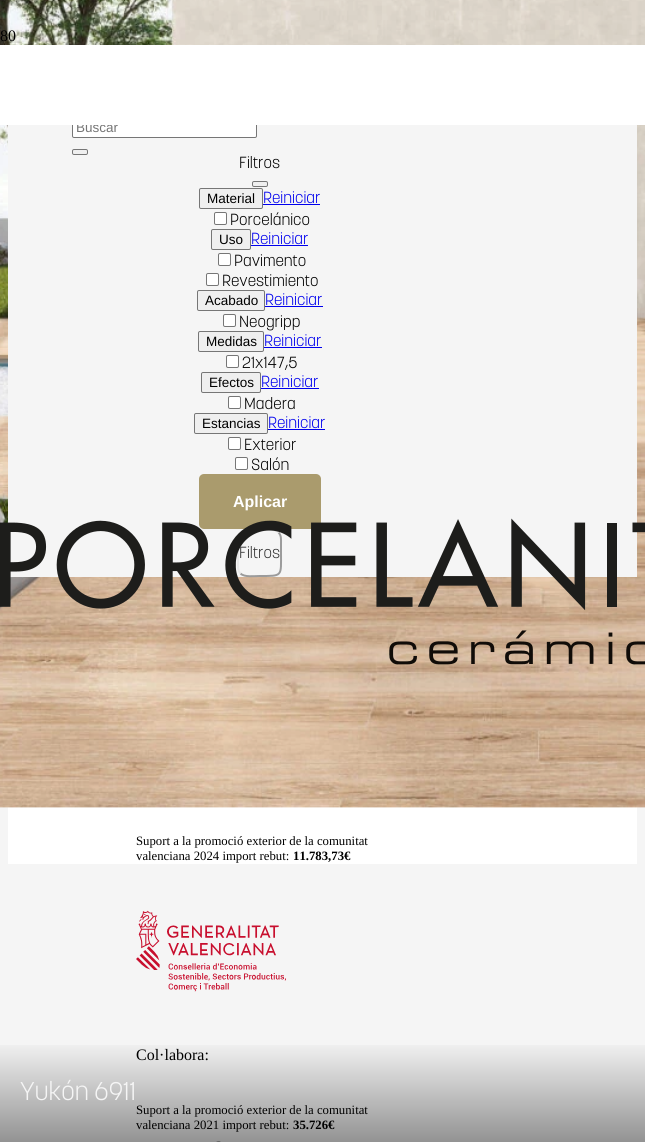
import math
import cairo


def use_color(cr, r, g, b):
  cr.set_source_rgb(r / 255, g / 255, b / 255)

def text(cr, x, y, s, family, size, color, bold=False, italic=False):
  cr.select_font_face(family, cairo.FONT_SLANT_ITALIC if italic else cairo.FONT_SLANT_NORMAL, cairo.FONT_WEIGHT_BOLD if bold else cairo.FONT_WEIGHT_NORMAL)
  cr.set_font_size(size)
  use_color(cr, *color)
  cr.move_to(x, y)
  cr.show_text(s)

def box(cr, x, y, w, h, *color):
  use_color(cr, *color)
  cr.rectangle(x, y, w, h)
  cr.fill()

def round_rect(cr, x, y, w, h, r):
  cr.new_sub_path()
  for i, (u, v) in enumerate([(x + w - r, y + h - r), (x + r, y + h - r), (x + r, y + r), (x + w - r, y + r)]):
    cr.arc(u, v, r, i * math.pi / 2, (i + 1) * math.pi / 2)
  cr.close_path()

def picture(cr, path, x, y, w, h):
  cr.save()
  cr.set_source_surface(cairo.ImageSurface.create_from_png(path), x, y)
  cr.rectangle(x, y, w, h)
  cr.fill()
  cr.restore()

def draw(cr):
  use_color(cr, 245, 245, 245)
  cr.paint()
  box(cr, 8, 807, 629, 57, 255, 255, 255)
  picture(cr, "img_03.png", 0, 0, 645, 808)
  box(cr, 8, 125, 629, 452, 245, 245, 245)
  use_color(cr, 255, 255, 255)
  round_rect(cr, 72.5, 117.5, 184, 20, 1.5)
  cr.fill_preserve()
  use_color(cr, 118, 118, 118)
  cr.set_line_width(1)
  cr.stroke()
  use_color(cr, 239, 239, 239)
  round_rect(cr, 72.5, 149.5, 15, 5, 1.5)
  cr.fill_preserve()
  use_color(cr, 118, 118, 118)
  cr.stroke()
  use_color(cr, 239, 239, 239)
  round_rect(cr, 252.5, 181.5, 15, 5, 1.5)
  cr.fill_preserve()
  use_color(cr, 118, 118, 118)
  cr.stroke()
  use_color(cr, 239, 239, 239)
  round_rect(cr, 199.5, 188.5, 63, 20, 1.5)
  cr.fill_preserve()
  use_color(cr, 118, 118, 118)
  cr.stroke()
  box(cr, 263, 204, 57, 1, 0, 0, 238)
  use_color(cr, 255, 255, 255)
  round_rect(cr, 214.5, 212.5, 12, 12, 1.5)
  cr.fill_preserve()
  use_color(cr, 118, 118, 118)
  cr.stroke()
  use_color(cr, 239, 239, 239)
  round_rect(cr, 211.5, 229.5, 39, 20, 1.5)
  cr.fill_preserve()
  use_color(cr, 118, 118, 118)
  cr.stroke()
  box(cr, 251, 245, 57, 1, 0, 0, 238)
  use_color(cr, 255, 255, 255)
  round_rect(cr, 218.5, 253.5, 12, 12, 1.5)
  cr.fill_preserve()
  use_color(cr, 118, 118, 118)
  cr.stroke()
  use_color(cr, 255, 255, 255)
  round_rect(cr, 206.5, 273.5, 12, 12, 1.5)
  cr.fill_preserve()
  use_color(cr, 118, 118, 118)
  cr.stroke()
  use_color(cr, 239, 239, 239)
  round_rect(cr, 197.5, 290.5, 67, 20, 1.5)
  cr.fill_preserve()
  use_color(cr, 118, 118, 118)
  cr.stroke()
  box(cr, 265, 306, 58, 1, 0, 0, 238)
  use_color(cr, 255, 255, 255)
  round_rect(cr, 223.5, 314.5, 12, 12, 1.5)
  cr.fill_preserve()
  use_color(cr, 118, 118, 118)
  cr.stroke()
  use_color(cr, 239, 239, 239)
  round_rect(cr, 198.5, 331.5, 65, 20, 1.5)
  cr.fill_preserve()
  use_color(cr, 118, 118, 118)
  cr.stroke()
  box(cr, 264, 347, 58, 1, 0, 0, 238)
  use_color(cr, 255, 255, 255)
  round_rect(cr, 226.5, 355.5, 12, 12, 1.5)
  cr.fill_preserve()
  use_color(cr, 118, 118, 118)
  cr.stroke()
  use_color(cr, 239, 239, 239)
  round_rect(cr, 201.5, 372.5, 59, 20, 1.5)
  cr.fill_preserve()
  use_color(cr, 118, 118, 118)
  cr.stroke()
  box(cr, 261, 388, 58, 1, 0, 0, 238)
  use_color(cr, 255, 255, 255)
  round_rect(cr, 228.5, 396.5, 12, 12, 1.5)
  cr.fill_preserve()
  use_color(cr, 118, 118, 118)
  cr.stroke()
  use_color(cr, 239, 239, 239)
  round_rect(cr, 194.5, 413.5, 73, 20, 1.5)
  cr.fill_preserve()
  use_color(cr, 118, 118, 118)
  cr.stroke()
  box(cr, 268, 429, 57, 1, 0, 0, 238)
  use_color(cr, 255, 255, 255)
  round_rect(cr, 228.5, 437.5, 12, 12, 1.5)
  cr.fill_preserve()
  use_color(cr, 118, 118, 118)
  cr.stroke()
  use_color(cr, 255, 255, 255)
  round_rect(cr, 235.5, 457.5, 12, 12, 1.5)
  cr.fill_preserve()
  use_color(cr, 118, 118, 118)
  cr.stroke()
  use_color(cr, 170, 155, 109)
  round_rect(cr, 199, 474, 122, 55, 5)
  cr.fill()
  cr.new_path()
  cr.move_to(278.5, 532.5)
  cr.curve_to(281.5, 535.5, 281, 539.5, 281, 543.5)
  cr.line_to(281, 553)
  cr.curve_to(281, 576.5, 283, 576, 259.5, 576)
  cr.curve_to(254.5, 576, 244.5, 577.5, 240.5, 573.5)
  use_color(cr, 155, 155, 155)
  cr.set_line_width(2)
  cr.stroke()
  cr.new_path()
  cr.move_to(240.5, 573.5)
  cr.curve_to(237.5, 570.5, 238, 566.5, 238, 562.5)
  cr.line_to(238, 553)
  cr.curve_to(238, 529.5, 236, 530, 259.5, 530)
  cr.curve_to(264.5, 530, 274.5, 528.5, 278.5, 532.5)
  use_color(cr, 232, 232, 232)
  cr.stroke()
  picture(cr, "img_04.png", 136, 910, 150, 82)
  text(cr, 0, 41, "80", "Liberation Serif", 16, (0, 0, 0))
  text(cr, 76, 132, "Buscar", "Liberation Sans", 13.5, (117, 117, 117))
  box(cr, 0, 45, 645, 80, 255, 255, 255)
  text(cr, 239, 168, "Filtros", "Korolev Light", 16, (0, 0, 0))
  text(cr, 207, 203, "Material", "Liberation Sans", 13.5, (0, 0, 0))
  text(cr, 263, 203, "Reiniciar", "Korolev Light", 16, (0, 0, 238))
  text(cr, 230, 225, "Porcelánico", "Korolev Light", 16, (0, 0, 0))
  text(cr, 219, 244, "Uso", "Liberation Sans", 13.5, (0, 0, 0))
  text(cr, 251, 244, "Reiniciar", "Korolev Light", 16, (0, 0, 238))
  text(cr, 234, 266, "Pavimento", "Korolev Light", 16, (0, 0, 0))
  text(cr, 222, 286, "Revestimiento", "Korolev Light", 16, (0, 0, 0))
  text(cr, 205, 305, "Acabado", "Liberation Sans", 13.5, (0, 0, 0))
  text(cr, 265, 305, "Reiniciar", "Korolev Light", 16, (0, 0, 238))
  text(cr, 239, 327, "Neogripp", "Korolev Light", 16, (0, 0, 0))
  text(cr, 206, 346, "Medidas", "Liberation Sans", 13.5, (0, 0, 0))
  text(cr, 264, 346, "Reiniciar", "Korolev Light", 16, (0, 0, 238))
  text(cr, 242, 368, "21x147,5", "Korolev Light", 16, (0, 0, 0))
  text(cr, 209, 387, "Efectos", "Liberation Sans", 13.5, (0, 0, 0))
  text(cr, 261, 387, "Reiniciar", "Korolev Light", 16, (0, 0, 238))
  text(cr, 244, 409, "Madera", "Korolev Light", 16, (0, 0, 0))
  text(cr, 202, 428, "Estancias", "Liberation Sans", 13.5, (0, 0, 0))
  text(cr, 268, 428, "Reiniciar", "Korolev Light", 16, (0, 0, 238))
  text(cr, 244, 450, "Exterior", "Korolev Light", 16, (0, 0, 0))
  text(cr, 251, 470, "Salón", "Korolev Light", 16, (0, 0, 0))
  text(cr, 233, 507, "Aplicar", "Liberation Sans", 16, (255, 255, 255), bold=True)
  text(cr, 239, 558, "Filtros", "Korolev Light", 16, (51, 51, 51))
  picture(cr, "img_01.png", 0, 518, 645, 147)
  text(cr, 136, 845, "Suport a la promoció exterior de la comunitat", "Liberation Serif", 12.75, (0, 0, 0))
  text(cr, 136, 860, "valenciana 2024 import rebut:", "Liberation Serif", 12.75, (0, 0, 0))
  text(cr, 293, 860, "11.783,73€", "Liberation Serif", 12.75, (0, 0, 0), bold=True)
  text(cr, 136, 1060, "Col·labora:", "Liberation Serif", 16, (0, 0, 0))
  text(cr, 136, 1114, "Suport a la promoció exterior de la comunitat", "Liberation Serif", 12.75, (0, 0, 0))
  text(cr, 136, 1129, "valenciana 2021 import rebut:", "Liberation Serif", 12.75, (0, 0, 0))
  text(cr, 293, 1129, "35.726€", "Liberation Serif", 12.75, (0, 0, 0), bold=True)
  gradient = cairo.LinearGradient(323, 1142, 323, 1040)
  gradient.add_color_stop_rgba(0, 0, 0, 0, 0.4)
  gradient.add_color_stop_rgba(1, 0, 0, 0, 0)
  cr.set_source(gradient)
  cr.rectangle(0, 1045, 645, 97)
  cr.fill()
  picture(cr, "img_02.png", 216, 1141, 5, 1)
  text(cr, 20, 1100, "Yukón 6911", "Korolev Light", 25.5, (245, 245, 245))


surface = cairo.ImageSurface(cairo.FORMAT_RGB24, 645, 1142)
cr = cairo.Context(surface)
options = cairo.FontOptions()
options.set_hint_metrics(cairo.HINT_METRICS_OFF)
options.set_hint_style(cairo.HINT_STYLE_NONE)
cr.set_font_options(options)
cr.set_miter_limit(4)
draw(cr)
surface.write_to_png("out.png")
